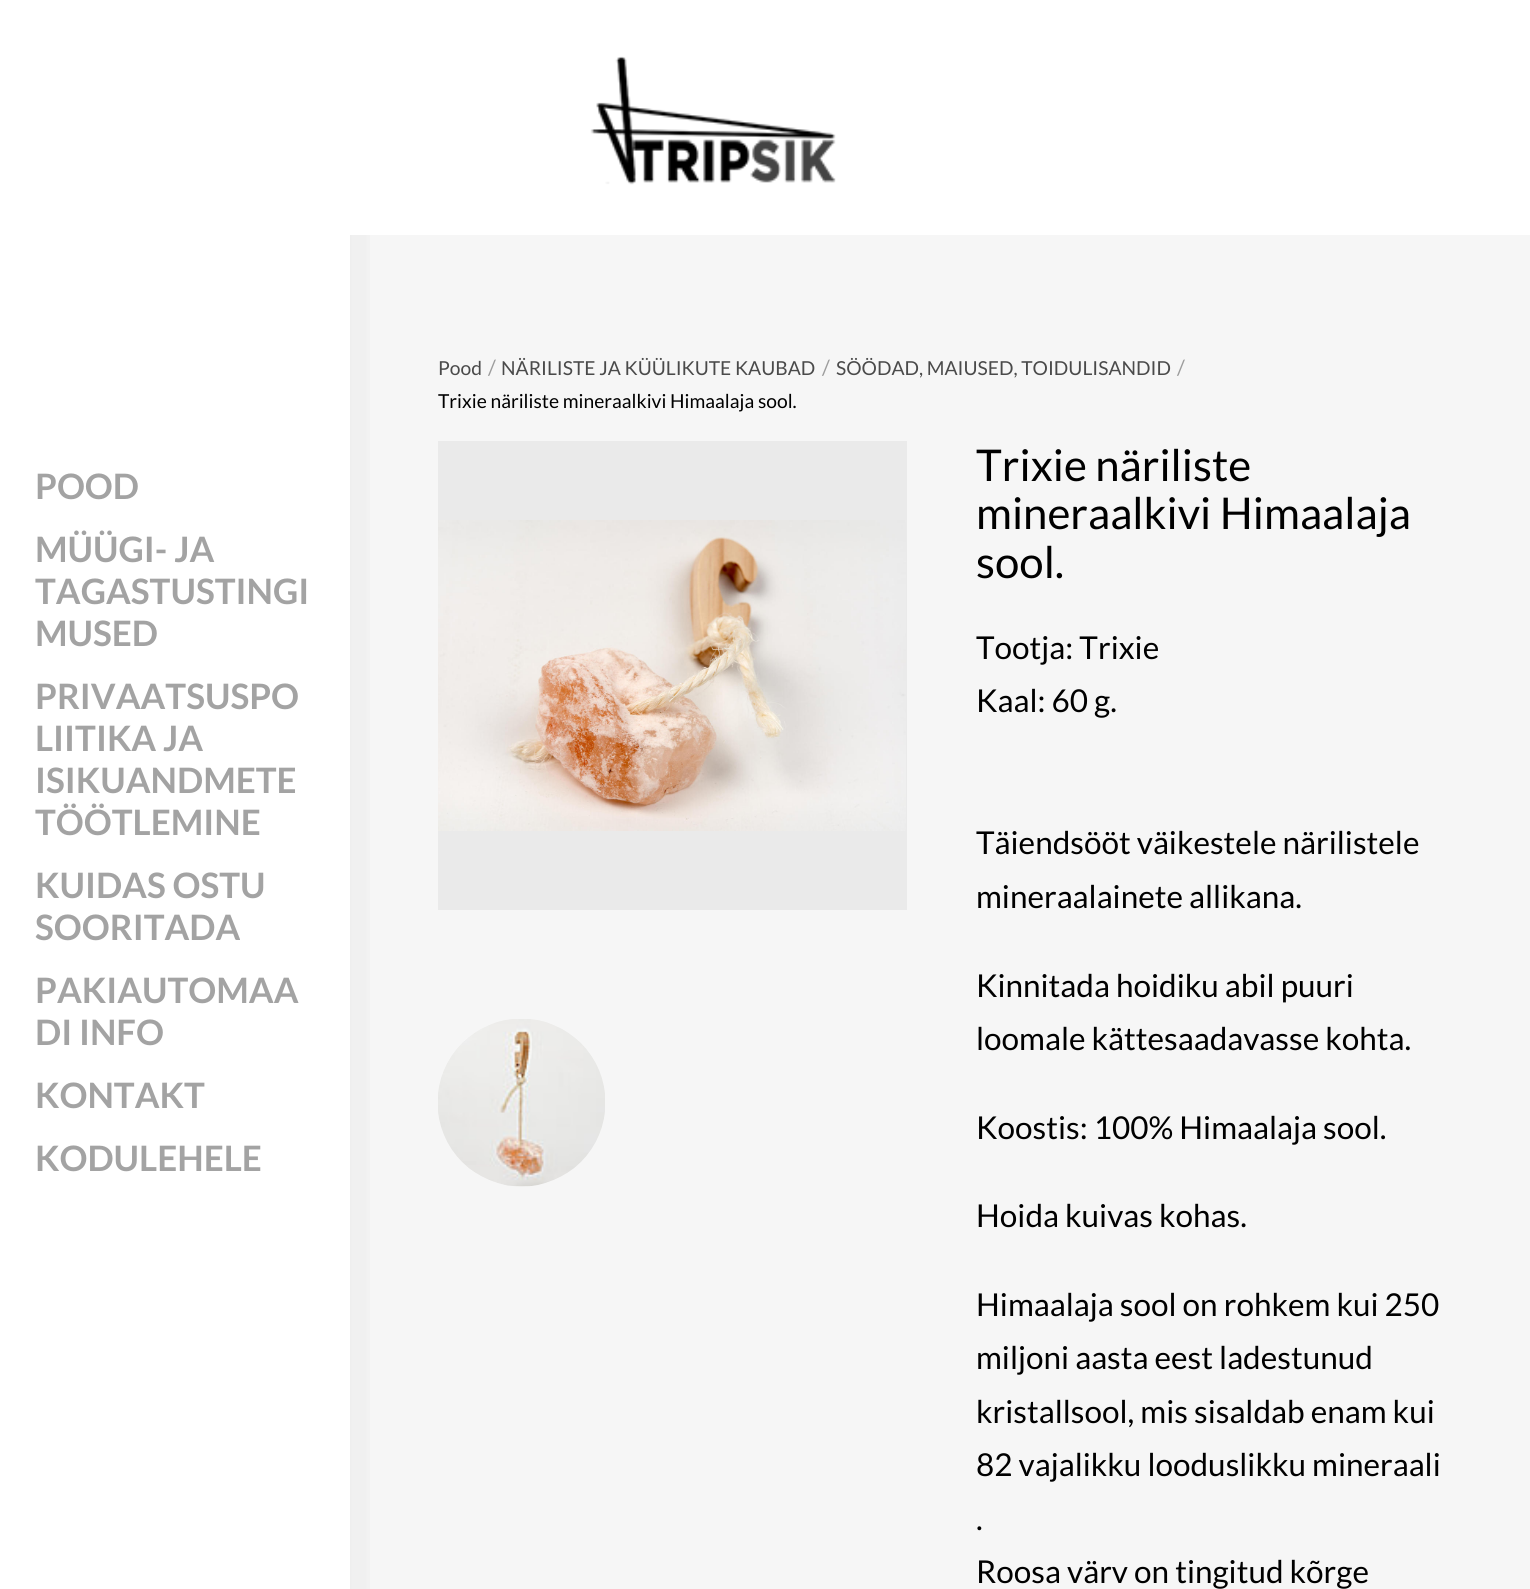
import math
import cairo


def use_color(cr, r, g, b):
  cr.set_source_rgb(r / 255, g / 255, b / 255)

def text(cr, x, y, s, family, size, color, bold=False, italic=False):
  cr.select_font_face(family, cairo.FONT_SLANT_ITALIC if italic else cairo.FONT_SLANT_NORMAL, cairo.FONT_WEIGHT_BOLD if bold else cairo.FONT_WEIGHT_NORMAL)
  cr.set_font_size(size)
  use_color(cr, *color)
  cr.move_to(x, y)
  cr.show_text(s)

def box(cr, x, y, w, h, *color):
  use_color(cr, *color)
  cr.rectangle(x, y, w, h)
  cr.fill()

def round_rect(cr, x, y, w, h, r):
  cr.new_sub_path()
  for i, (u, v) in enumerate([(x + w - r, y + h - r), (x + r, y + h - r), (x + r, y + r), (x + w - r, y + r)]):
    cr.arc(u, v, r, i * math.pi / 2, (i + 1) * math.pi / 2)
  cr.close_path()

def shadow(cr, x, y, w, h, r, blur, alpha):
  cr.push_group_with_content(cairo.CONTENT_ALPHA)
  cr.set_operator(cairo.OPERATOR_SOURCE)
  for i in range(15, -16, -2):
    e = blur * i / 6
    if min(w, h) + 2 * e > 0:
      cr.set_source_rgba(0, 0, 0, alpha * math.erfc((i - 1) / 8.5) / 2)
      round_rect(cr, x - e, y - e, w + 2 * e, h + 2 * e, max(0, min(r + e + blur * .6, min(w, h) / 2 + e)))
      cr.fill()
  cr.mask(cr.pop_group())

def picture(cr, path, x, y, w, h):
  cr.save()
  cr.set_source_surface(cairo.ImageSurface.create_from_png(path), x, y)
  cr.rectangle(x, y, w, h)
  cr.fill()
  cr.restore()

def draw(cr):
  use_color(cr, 255, 255, 255)
  cr.paint()
  box(cr, 350, 235, 1180, 1354, 246, 246, 246)
  box(cr, 438, 441, 469, 469, 234, 234, 234)
  picture(cr, "img_02.png", 438, 520, 468, 311)
  picture(cr, "img_03.png", 438, 1019, 167, 168)
  cr.save()
  cr.rectangle(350, 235, 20, 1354)
  cr.clip()
  use_color(cr, 0, 0, 0)
  shadow(cr, 9, 147, 350, 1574, 0, 44, 0.05)
  cr.restore()
  box(cr, 0, 110, 395, 125, 255, 255, 255)
  picture(cr, "img_01.png", 590, 56, 246, 129)
  text(cr, 35, 499, "POOD", "Lato", 35, (163, 163, 163), bold=True)
  text(cr, 35, 562, "MÜÜGI- JA", "Lato", 35, (163, 163, 163), bold=True)
  text(cr, 35, 604, "TAGASTUSTINGI", "Lato", 35, (163, 163, 163), bold=True)
  text(cr, 35, 646, "MUSED", "Lato", 35, (163, 163, 163), bold=True)
  text(cr, 35, 709, "PRIVAATSUSPO", "Lato", 35, (163, 163, 163), bold=True)
  text(cr, 35, 751, "LIITIKA JA", "Lato", 35, (163, 163, 163), bold=True)
  text(cr, 35, 793, "ISIKUANDMETE", "Lato", 35, (163, 163, 163), bold=True)
  text(cr, 35, 835, "TÖÖTLEMINE", "Lato", 35, (163, 163, 163), bold=True)
  text(cr, 35, 898, "KUIDAS OSTU", "Lato", 35, (163, 163, 163), bold=True)
  text(cr, 35, 940, "SOORITADA", "Lato", 35, (163, 163, 163), bold=True)
  text(cr, 35, 1003, "PAKIAUTOMAA", "Lato", 35, (163, 163, 163), bold=True)
  text(cr, 35, 1045, "DI INFO", "Lato", 35, (163, 163, 163), bold=True)
  text(cr, 35, 1108, "KONTAKT", "Lato", 35, (163, 163, 163), bold=True)
  text(cr, 35, 1171, "KODULEHELE", "Lato", 35, (163, 163, 163), bold=True)
  text(cr, 438, 375, "Pood", "Lato", 19.25, (74, 74, 74))
  text(cr, 488, 375, "/", "Lato", 21, (157, 157, 157))
  text(cr, 501, 375, "NÄRILISTE JA KÜÜLIKUTE KAUBAD", "Lato", 19.25, (74, 74, 74))
  text(cr, 822, 375, "/", "Lato", 21, (157, 157, 157))
  text(cr, 836, 375, "SÖÖDAD, MAIUSED, TOIDULISANDID", "Lato", 19.25, (74, 74, 74))
  text(cr, 1177, 375, "/", "Lato", 21, (157, 157, 157))
  text(cr, 438, 408, "Trixie näriliste mineraalkivi Himaalaja sool.", "Lato", 19.25, (0, 0, 0))
  text(cr, 976, 481, "Trixie näriliste", "Lato", 43.75, (0, 0, 0))
  text(cr, 976, 529, "mineraalkivi Himaalaja", "Lato", 43.75, (0, 0, 0))
  text(cr, 976, 578, "sool.", "Lato", 43.75, (0, 0, 0))
  text(cr, 976, 659, "Tootja: Trixie", "Lato", 31.5, (0, 0, 0))
  text(cr, 976, 712, "Kaal: 60 g.", "Lato", 31.5, (0, 0, 0))
  text(cr, 976, 854, "Täiendsööt väikestele närilistele", "Lato", 31.5, (0, 0, 0))
  text(cr, 976, 908, "mineraalainete allikana.", "Lato", 31.5, (0, 0, 0))
  text(cr, 976, 997, "Kinnitada hoidiku abil puuri", "Lato", 31.5, (0, 0, 0))
  text(cr, 976, 1050, "loomale kättesaadavasse kohta.", "Lato", 31.5, (0, 0, 0))
  text(cr, 976, 1139, "Koostis: 100% Himaalaja sool.", "Lato", 31.5, (0, 0, 0))
  text(cr, 976, 1227, "Hoida kuivas kohas.", "Lato", 31.5, (0, 0, 0))
  text(cr, 976, 1316, "Himaalaja sool on rohkem kui 250", "Lato", 31.5, (0, 0, 0))
  text(cr, 976, 1369, "miljoni aasta eest ladestunud", "Lato", 31.5, (0, 0, 0))
  text(cr, 976, 1423, "kristallsool, mis sisaldab enam kui", "Lato", 31.5, (0, 0, 0))
  text(cr, 976, 1476, "82 vajalikku looduslikku mineraali", "Lato", 31.5, (0, 0, 0))
  text(cr, 976, 1530, ".", "Lato", 31.5, (0, 0, 0))
  text(cr, 976, 1583, "Roosa värv on tingitud kõrge", "Lato", 31.5, (0, 0, 0))


surface = cairo.ImageSurface(cairo.FORMAT_RGB24, 1530, 1589)
cr = cairo.Context(surface)
options = cairo.FontOptions()
options.set_hint_metrics(cairo.HINT_METRICS_OFF)
options.set_hint_style(cairo.HINT_STYLE_NONE)
cr.set_font_options(options)
cr.set_miter_limit(4)
draw(cr)
surface.write_to_png("out.png")
